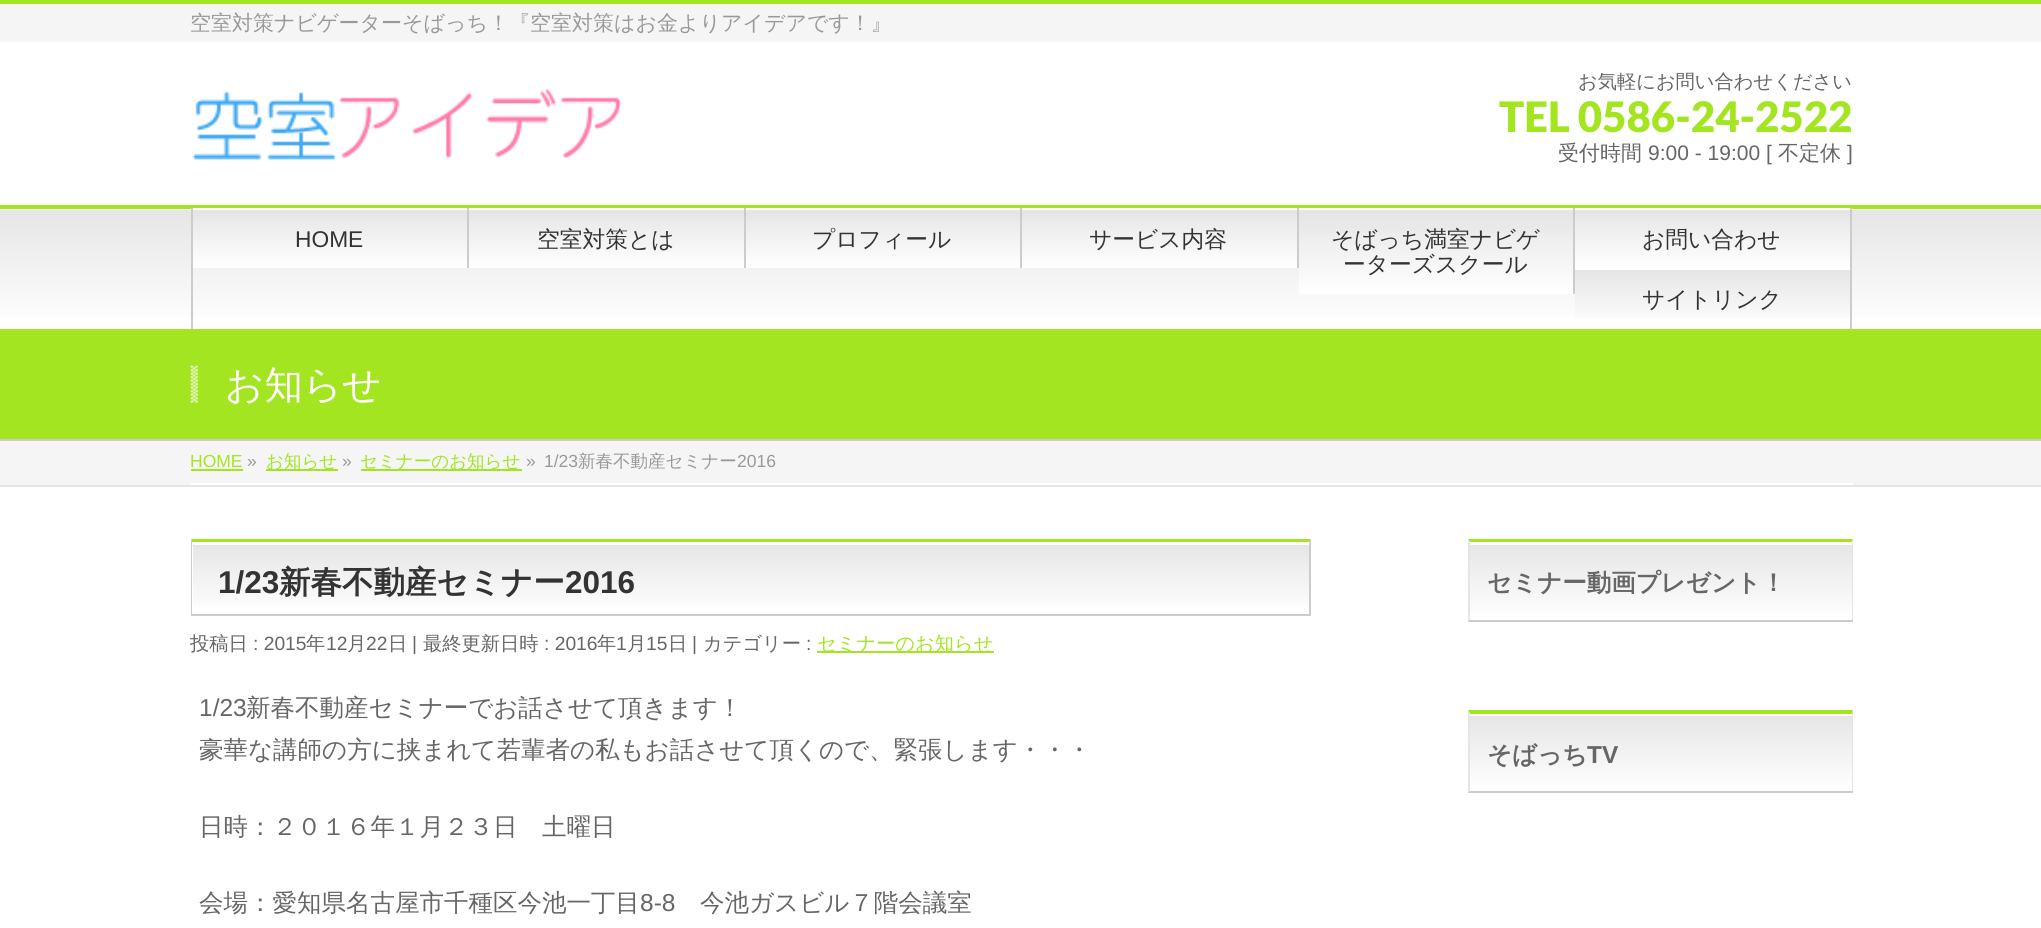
import math
import cairo


def use_color(cr, r, g, b):
  cr.set_source_rgb(r / 255, g / 255, b / 255)

def text(cr, x, y, s, family, size, color, bold=False, italic=False):
  cr.select_font_face(family, cairo.FONT_SLANT_ITALIC if italic else cairo.FONT_SLANT_NORMAL, cairo.FONT_WEIGHT_BOLD if bold else cairo.FONT_WEIGHT_NORMAL)
  cr.set_font_size(size)
  use_color(cr, *color)
  cr.move_to(x, y)
  cr.show_text(s)

def box(cr, x, y, w, h, *color):
  use_color(cr, *color)
  cr.rectangle(x, y, w, h)
  cr.fill()

def picture(cr, path, x, y, w, h):
  cr.save()
  cr.set_source_surface(cairo.ImageSurface.create_from_png(path), x, y)
  cr.rectangle(x, y, w, h)
  cr.fill()
  cr.restore()

def draw(cr):
  use_color(cr, 255, 255, 255)
  cr.paint()
  box(cr, 0, 4, 2041, 38, 245, 245, 245)
  box(cr, 0, 0, 2041, 4, 163, 229, 32)
  picture(cr, "img_01.png", 192, 88, 430, 72)
  gradient = cairo.LinearGradient(0, 208, 0, 329)
  gradient.add_color_stop_rgba(0, 0.898, 0.898, 0.898, 1)
  gradient.add_color_stop_rgba(1, 1, 1, 1, 1)
  cr.set_source(gradient)
  cr.rectangle(0, 210, 2041, 107)
  cr.fill()
  box(cr, 0, 205, 2041, 4, 163, 229, 32)
  box(cr, 191, 208, 2, 121, 204, 204, 204)
  gradient = cairo.LinearGradient(193, 208, 193, 268)
  gradient.add_color_stop_rgba(0, 0.898, 0.898, 0.898, 1)
  gradient.add_color_stop_rgba(1, 1, 1, 1, 1)
  cr.set_source(gradient)
  cr.rectangle(193, 218, 274, 50)
  cr.fill()
  box(cr, 193, 208, 274, 1, 255, 255, 255)
  box(cr, 467, 208, 2, 60, 204, 204, 204)
  gradient = cairo.LinearGradient(469, 208, 469, 268)
  gradient.add_color_stop_rgba(0, 0.898, 0.898, 0.898, 1)
  gradient.add_color_stop_rgba(1, 1, 1, 1, 1)
  cr.set_source(gradient)
  cr.rectangle(469, 218, 275, 50)
  cr.fill()
  box(cr, 469, 208, 275, 1, 255, 255, 255)
  box(cr, 744, 208, 2, 60, 204, 204, 204)
  gradient = cairo.LinearGradient(746, 208, 746, 268)
  gradient.add_color_stop_rgba(0, 0.898, 0.898, 0.898, 1)
  gradient.add_color_stop_rgba(1, 1, 1, 1, 1)
  cr.set_source(gradient)
  cr.rectangle(746, 218, 274, 50)
  cr.fill()
  box(cr, 746, 208, 274, 1, 255, 255, 255)
  box(cr, 1020, 208, 2, 60, 204, 204, 204)
  gradient = cairo.LinearGradient(1022, 208, 1022, 268)
  gradient.add_color_stop_rgba(0, 0.898, 0.898, 0.898, 1)
  gradient.add_color_stop_rgba(1, 1, 1, 1, 1)
  cr.set_source(gradient)
  cr.rectangle(1022, 218, 275, 50)
  cr.fill()
  box(cr, 1022, 208, 275, 1, 255, 255, 255)
  box(cr, 1297, 208, 2, 60, 204, 204, 204)
  gradient = cairo.LinearGradient(1299, 208, 1299, 294)
  gradient.add_color_stop_rgba(0, 0.898, 0.898, 0.898, 1)
  gradient.add_color_stop_rgba(1, 1, 1, 1, 1)
  cr.set_source(gradient)
  cr.rectangle(1299, 233, 274, 61)
  cr.fill()
  box(cr, 1299, 208, 274, 1, 255, 255, 255)
  box(cr, 1573, 208, 2, 86, 204, 204, 204)
  gradient = cairo.LinearGradient(1575, 208, 1575, 268)
  gradient.add_color_stop_rgba(0, 0.898, 0.898, 0.898, 1)
  gradient.add_color_stop_rgba(1, 1, 1, 1, 1)
  cr.set_source(gradient)
  cr.rectangle(1575, 218, 275, 50)
  cr.fill()
  box(cr, 1575, 208, 275, 1, 255, 255, 255)
  box(cr, 1850, 208, 2, 121, 204, 204, 204)
  gradient = cairo.LinearGradient(1575, 268, 1575, 329)
  gradient.add_color_stop_rgba(0, 0.898, 0.898, 0.898, 1)
  gradient.add_color_stop_rgba(1, 1, 1, 1, 1)
  cr.set_source(gradient)
  cr.rectangle(1575, 270, 275, 48)
  cr.fill()
  box(cr, 1575, 268, 275, 2, 255, 255, 255)
  box(cr, 0, 329, 2041, 110, 163, 229, 32)
  box(cr, 0, 439, 2041, 2, 204, 204, 204)
  picture(cr, "img_02.png", 190, 365, 8, 38)
  box(cr, 0, 441, 2041, 44, 245, 245, 245)
  box(cr, 0, 485, 2041, 2, 229, 229, 229)
  box(cr, 191, 483, 1662, 2, 255, 255, 255)
  box(cr, 191, 469, 52, 2, 163, 229, 32)
  box(cr, 266, 469, 72, 2, 163, 229, 32)
  box(cr, 361, 469, 161, 2, 163, 229, 32)
  gradient = cairo.LinearGradient(193, 543, 193, 614)
  gradient.add_color_stop_rgba(0, 0.898, 0.898, 0.898, 1)
  gradient.add_color_stop_rgba(1, 1, 1, 1, 1)
  cr.set_source(gradient)
  cr.rectangle(193, 545, 1116, 62)
  cr.fill()
  use_color(cr, 163, 229, 32)
  cr.new_path()
  cr.move_to(191, 539)
  cr.line_to(1311, 539)
  cr.line_to(1309, 542)
  cr.line_to(192, 542)
  cr.close_path()
  cr.fill()
  use_color(cr, 204, 204, 204)
  cr.new_path()
  cr.move_to(1311, 539)
  cr.line_to(1311, 616)
  cr.line_to(1309, 614)
  cr.line_to(1309, 542)
  cr.close_path()
  cr.fill()
  box(cr, 191, 614, 1120, 2, 204, 204, 204)
  cr.new_path()
  cr.move_to(191, 616)
  cr.line_to(191, 539)
  cr.line_to(192, 542)
  cr.line_to(192, 614)
  cr.close_path()
  cr.fill()
  box(cr, 817, 651, 177, 2, 163, 229, 32)
  gradient = cairo.LinearGradient(1470, 543, 1470, 620)
  gradient.add_color_stop_rgba(0, 0.898, 0.898, 0.898, 1)
  gradient.add_color_stop_rgba(1, 1, 1, 1, 1)
  cr.set_source(gradient)
  cr.rectangle(1470, 545, 382, 68)
  cr.fill()
  use_color(cr, 163, 229, 32)
  cr.new_path()
  cr.move_to(1468, 539)
  cr.line_to(1853, 539)
  cr.line_to(1852, 542)
  cr.line_to(1470, 542)
  cr.close_path()
  cr.fill()
  use_color(cr, 229, 229, 229)
  cr.new_path()
  cr.move_to(1853, 539)
  cr.line_to(1853, 621)
  cr.line_to(1852, 620)
  cr.line_to(1852, 542)
  cr.close_path()
  cr.fill()
  box(cr, 1468, 620, 385, 2, 204, 204, 204)
  use_color(cr, 229, 229, 229)
  cr.new_path()
  cr.move_to(1468, 621)
  cr.line_to(1468, 539)
  cr.line_to(1470, 542)
  cr.line_to(1470, 620)
  cr.close_path()
  cr.fill()
  gradient = cairo.LinearGradient(1470, 714, 1470, 791)
  gradient.add_color_stop_rgba(0, 0.898, 0.898, 0.898, 1)
  gradient.add_color_stop_rgba(1, 1, 1, 1, 1)
  cr.set_source(gradient)
  cr.rectangle(1470, 716, 382, 68)
  cr.fill()
  use_color(cr, 163, 229, 32)
  cr.new_path()
  cr.move_to(1468, 710)
  cr.line_to(1853, 710)
  cr.line_to(1852, 714)
  cr.line_to(1470, 714)
  cr.close_path()
  cr.fill()
  use_color(cr, 229, 229, 229)
  cr.new_path()
  cr.move_to(1853, 710)
  cr.line_to(1853, 793)
  cr.line_to(1852, 791)
  cr.line_to(1852, 714)
  cr.close_path()
  cr.fill()
  box(cr, 1468, 791, 385, 2, 204, 204, 204)
  use_color(cr, 229, 229, 229)
  cr.new_path()
  cr.move_to(1468, 793)
  cr.line_to(1468, 710)
  cr.line_to(1470, 714)
  cr.line_to(1470, 791)
  cr.close_path()
  cr.fill()
  text(cr, 190, 30, "空室対策ナビゲーターそばっち！『空室対策はお金よりアイデアです！』", "WenQuanYi Zen Hei Medium", 21, (153, 153, 153))
  text(cr, 1578, 88, "お気軽にお問い合わせください", "WenQuanYi Zen Hei Medium", 19.25, (102, 102, 102))
  text(cr, 1499, 132, "TEL 0586-24-2522", "Lato Black", 42, (163, 229, 32))
  text(cr, 1558, 160, "受付時間", "WenQuanYi Zen Hei Medium", 21, (102, 102, 102))
  text(cr, 1648, 160, "9:00 - 19:00 [", "Liberation Sans", 21, (102, 102, 102))
  text(cr, 1778, 160, "不定休", "WenQuanYi Zen Hei Medium", 21, (102, 102, 102))
  text(cr, 1847, 160, "]", "Liberation Sans", 21, (102, 102, 102))
  text(cr, 295, 247, "HOME", "Liberation Sans", 22.75, (51, 51, 51))
  text(cr, 537, 247, "空室対策とは", "WenQuanYi Zen Hei Medium", 22.75, (51, 51, 51))
  text(cr, 812, 247, "プロフィール", "WenQuanYi Zen Hei Medium", 22.75, (51, 51, 51))
  text(cr, 1089, 247, "サービス内容", "WenQuanYi Zen Hei Medium", 22.75, (51, 51, 51))
  text(cr, 1331, 247, "そばっち満室ナビゲ", "WenQuanYi Zen Hei Medium", 22.75, (51, 51, 51))
  text(cr, 1343, 272, "ーターズスクール", "WenQuanYi Zen Hei Medium", 22.75, (51, 51, 51))
  text(cr, 1642, 247, "お問い合わせ", "WenQuanYi Zen Hei Medium", 22.75, (51, 51, 51))
  text(cr, 1642, 307, "サイトリンク", "WenQuanYi Zen Hei Medium", 22.75, (51, 51, 51))
  text(cr, 225, 398, "お知らせ", "WenQuanYi Zen Hei Medium", 38.5, (255, 255, 255))
  text(cr, 190, 467, "HOME", "Liberation Sans", 17.5, (163, 229, 32))
  text(cr, 247, 467, "»", "Liberation Sans", 17.5, (153, 153, 153))
  text(cr, 266, 467, "お知らせ", "WenQuanYi Zen Hei Medium", 17.5, (163, 229, 32))
  text(cr, 342, 467, "»", "Liberation Sans", 17.5, (153, 153, 153))
  text(cr, 360, 467, "セミナーのお知らせ", "WenQuanYi Zen Hei Medium", 17.5, (163, 229, 32))
  text(cr, 526, 467, "»", "Liberation Sans", 17.5, (153, 153, 153))
  text(cr, 544, 467, "1/23", "Liberation Sans", 17.5, (153, 153, 153))
  text(cr, 578, 467, "新春不動産セミナー", "WenQuanYi Zen Hei Medium", 17.5, (153, 153, 153))
  text(cr, 737, 467, "2016", "Liberation Sans", 17.5, (153, 153, 153))
  text(cr, 218, 593, "1/23", "Liberation Sans", 31.5, (51, 51, 51), bold=True)
  text(cr, 279, 593, "新春不動産セミナー", "WenQuanYi Zen Hei", 31.5, (51, 51, 51), bold=True)
  text(cr, 565, 593, "2016", "Liberation Sans", 31.5, (51, 51, 51), bold=True)
  text(cr, 190, 650, "投稿日", "WenQuanYi Zen Hei Medium", 19.25, (102, 102, 102))
  text(cr, 253, 650, ": 2015", "Liberation Sans", 19.25, (102, 102, 102))
  text(cr, 306, 650, "年", "WenQuanYi Zen Hei Medium", 19.25, (102, 102, 102))
  text(cr, 326, 650, "12", "Liberation Sans", 19.25, (102, 102, 102))
  text(cr, 347, 650, "月", "WenQuanYi Zen Hei Medium", 19.25, (102, 102, 102))
  text(cr, 366, 650, "22", "Liberation Sans", 19.25, (102, 102, 102))
  text(cr, 388, 650, "日", "WenQuanYi Zen Hei Medium", 19.25, (102, 102, 102))
  text(cr, 412, 650, "|", "Liberation Sans", 19.25, (102, 102, 102))
  text(cr, 423, 650, "最終更新日時", "WenQuanYi Zen Hei Medium", 19.25, (102, 102, 102))
  text(cr, 544, 650, ": 2016", "Liberation Sans", 19.25, (102, 102, 102))
  text(cr, 597, 650, "年", "WenQuanYi Zen Hei Medium", 19.25, (102, 102, 102))
  text(cr, 616, 650, "1", "Liberation Sans", 19.25, (102, 102, 102))
  text(cr, 627, 650, "月", "WenQuanYi Zen Hei Medium", 19.25, (102, 102, 102))
  text(cr, 646, 650, "15", "Liberation Sans", 19.25, (102, 102, 102))
  text(cr, 668, 650, "日", "WenQuanYi Zen Hei Medium", 19.25, (102, 102, 102))
  text(cr, 692, 650, "|", "Liberation Sans", 19.25, (102, 102, 102))
  text(cr, 703, 650, "カテゴリー", "WenQuanYi Zen Hei Medium", 19.25, (102, 102, 102))
  text(cr, 806, 650, ":", "Liberation Sans", 19.25, (102, 102, 102))
  text(cr, 817, 650, "セミナーのお知らせ", "WenQuanYi Zen Hei Medium", 19.25, (163, 229, 32))
  text(cr, 199, 716, "1/23", "Liberation Sans", 24.5, (102, 102, 102))
  text(cr, 246, 716, "新春不動産セミナーでお話させて頂きます！", "WenQuanYi Zen Hei Medium", 24.5, (102, 102, 102))
  text(cr, 199, 758, "豪華な講師の方に挟まれて若輩者の私もお話させて頂くので、緊張します・・・", "WenQuanYi Zen Hei Medium", 24.5, (102, 102, 102))
  text(cr, 199, 835, "日時：２０１６年１月２３日　土曜日", "WenQuanYi Zen Hei Medium", 24.5, (102, 102, 102))
  text(cr, 199, 911, "会場：愛知県名古屋市千種区今池一丁目", "WenQuanYi Zen Hei Medium", 24.5, (102, 102, 102))
  text(cr, 640, 911, "8-8", "Liberation Sans", 24.5, (102, 102, 102))
  text(cr, 700, 911, "今池ガスビル７階会議室", "WenQuanYi Zen Hei Medium", 24.5, (102, 102, 102))
  text(cr, 1487, 591, "セミナー動画プレゼント！", "WenQuanYi Zen Hei", 24.5, (102, 102, 102), bold=True)
  text(cr, 1487, 763, "そばっち", "WenQuanYi Zen Hei", 24.5, (102, 102, 102), bold=True)
  text(cr, 1587, 763, "TV", "Liberation Sans", 24.5, (102, 102, 102), bold=True)


surface = cairo.ImageSurface(cairo.FORMAT_RGB24, 2041, 928)
cr = cairo.Context(surface)
options = cairo.FontOptions()
options.set_hint_metrics(cairo.HINT_METRICS_OFF)
options.set_hint_style(cairo.HINT_STYLE_NONE)
cr.set_font_options(options)
cr.set_miter_limit(4)
draw(cr)
surface.write_to_png("out.png")
